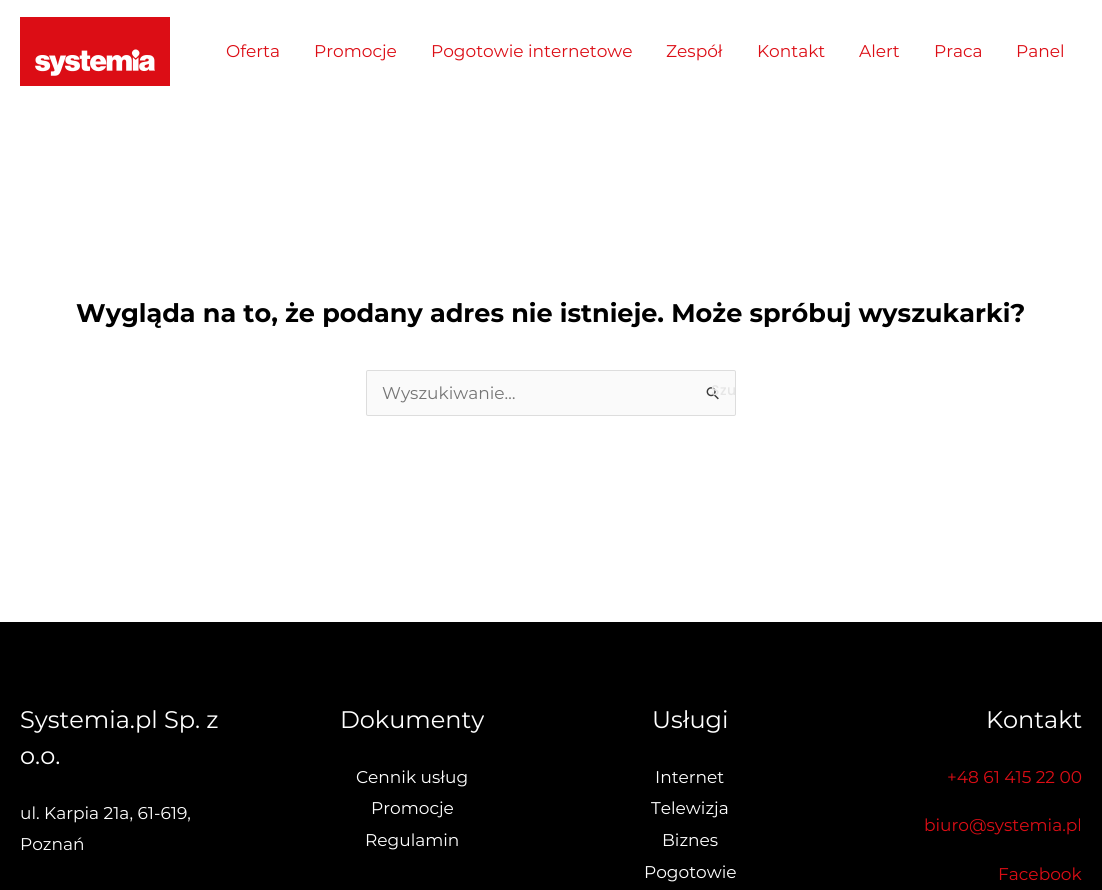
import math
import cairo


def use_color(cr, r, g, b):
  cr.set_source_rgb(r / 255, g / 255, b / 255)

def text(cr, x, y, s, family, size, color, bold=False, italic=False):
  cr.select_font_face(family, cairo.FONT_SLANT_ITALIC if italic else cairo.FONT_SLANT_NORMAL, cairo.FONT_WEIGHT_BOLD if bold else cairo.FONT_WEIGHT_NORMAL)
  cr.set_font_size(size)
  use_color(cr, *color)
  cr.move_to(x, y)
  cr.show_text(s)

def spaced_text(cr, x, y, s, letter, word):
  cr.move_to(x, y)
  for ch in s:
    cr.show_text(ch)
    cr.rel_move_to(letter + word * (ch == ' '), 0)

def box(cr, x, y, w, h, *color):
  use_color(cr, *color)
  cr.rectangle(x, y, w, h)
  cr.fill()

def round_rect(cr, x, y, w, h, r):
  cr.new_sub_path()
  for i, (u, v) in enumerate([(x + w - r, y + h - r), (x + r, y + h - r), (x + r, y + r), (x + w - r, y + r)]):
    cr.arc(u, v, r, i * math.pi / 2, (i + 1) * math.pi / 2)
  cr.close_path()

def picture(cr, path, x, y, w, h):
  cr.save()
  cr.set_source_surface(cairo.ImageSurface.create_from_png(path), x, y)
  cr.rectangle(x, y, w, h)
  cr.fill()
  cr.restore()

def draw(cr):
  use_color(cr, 255, 255, 255)
  cr.paint()
  picture(cr, "img_01.png", 20, 17, 150, 69)
  use_color(cr, 250, 250, 250)
  round_rect(cr, 366.5, 370.5, 369, 45, 1.5)
  cr.fill_preserve()
  use_color(cr, 221, 221, 221)
  cr.set_line_width(1)
  cr.stroke()
  picture(cr, "img_02.png", 706, 387, 13, 13)
  box(cr, 0, 622, 1102, 268, 0, 0, 0)
  text(cr, 226, 57, "Oferta", "Montserrat", 17, (220, 13, 21))
  text(cr, 314, 57, "Promocje", "Montserrat", 17, (220, 13, 21))
  text(cr, 431, 57, "Pogotowie internetowe", "Montserrat", 17, (220, 13, 21))
  text(cr, 666, 57, "Zespół", "Montserrat", 17, (220, 13, 21))
  text(cr, 757, 57, "Kontakt", "Montserrat", 17, (220, 13, 21))
  text(cr, 859, 57, "Alert", "Montserrat", 17, (220, 13, 21))
  text(cr, 934, 57, "Praca", "Montserrat", 17, (220, 13, 21))
  text(cr, 1016, 57, "Panel", "Montserrat", 17, (220, 13, 21))
  text(cr, 76, 322, "Wygląda na to, że podany adres nie istnieje. Może spróbuj wyszukarki?", "Montserrat", 25.5, (0, 0, 0), bold=True)
  text(cr, 382, 399, "Wyszukiwanie…", "Montserrat", 17, (117, 117, 117))
  cr.select_font_face("Poppins Medium")
  cr.set_font_size(14)
  use_color(cr, 230, 230, 230)
  spaced_text(cr, 711, 395, "Szu", 0.5, 0)
  text(cr, 20, 728, "Systemia.pl Sp. z", "Montserrat", 24, (255, 255, 255))
  text(cr, 20, 764, "o.o.", "Montserrat", 24, (255, 255, 255))
  text(cr, 20, 819, "ul. Karpia 21a, 61-619,", "Montserrat", 17, (255, 255, 255))
  text(cr, 20, 850, "Poznań", "Montserrat", 17, (255, 255, 255))
  text(cr, 340, 728, "Dokumenty", "Montserrat", 24, (255, 255, 255))
  text(cr, 356, 783, "Cennik usług", "Montserrat", 17, (255, 255, 255))
  text(cr, 371, 814, "Promocje", "Montserrat", 17, (255, 255, 255))
  text(cr, 365, 846, "Regulamin", "Montserrat", 17, (255, 255, 255))
  text(cr, 652, 728, "Usługi", "Montserrat", 24, (255, 255, 255))
  text(cr, 655, 783, "Internet", "Montserrat", 17, (255, 255, 255))
  text(cr, 651, 814, "Telewizja", "Montserrat", 17, (255, 255, 255))
  text(cr, 662, 846, "Biznes", "Montserrat", 17, (255, 255, 255))
  text(cr, 644, 878, "Pogotowie", "Montserrat", 17, (255, 255, 255))
  text(cr, 986, 728, "Kontakt", "Montserrat", 24, (255, 255, 255))
  text(cr, 947, 783, "+48 61 415 22 00", "Montserrat", 17, (220, 13, 21))
  text(cr, 924, 831, "biuro@systemia.pl", "Montserrat", 17, (220, 13, 21))
  text(cr, 998, 880, "Facebook", "Montserrat", 17, (220, 13, 21))


surface = cairo.ImageSurface(cairo.FORMAT_RGB24, 1102, 890)
cr = cairo.Context(surface)
options = cairo.FontOptions()
options.set_hint_metrics(cairo.HINT_METRICS_OFF)
options.set_hint_style(cairo.HINT_STYLE_NONE)
cr.set_font_options(options)
cr.set_miter_limit(4)
draw(cr)
surface.write_to_png("out.png")
